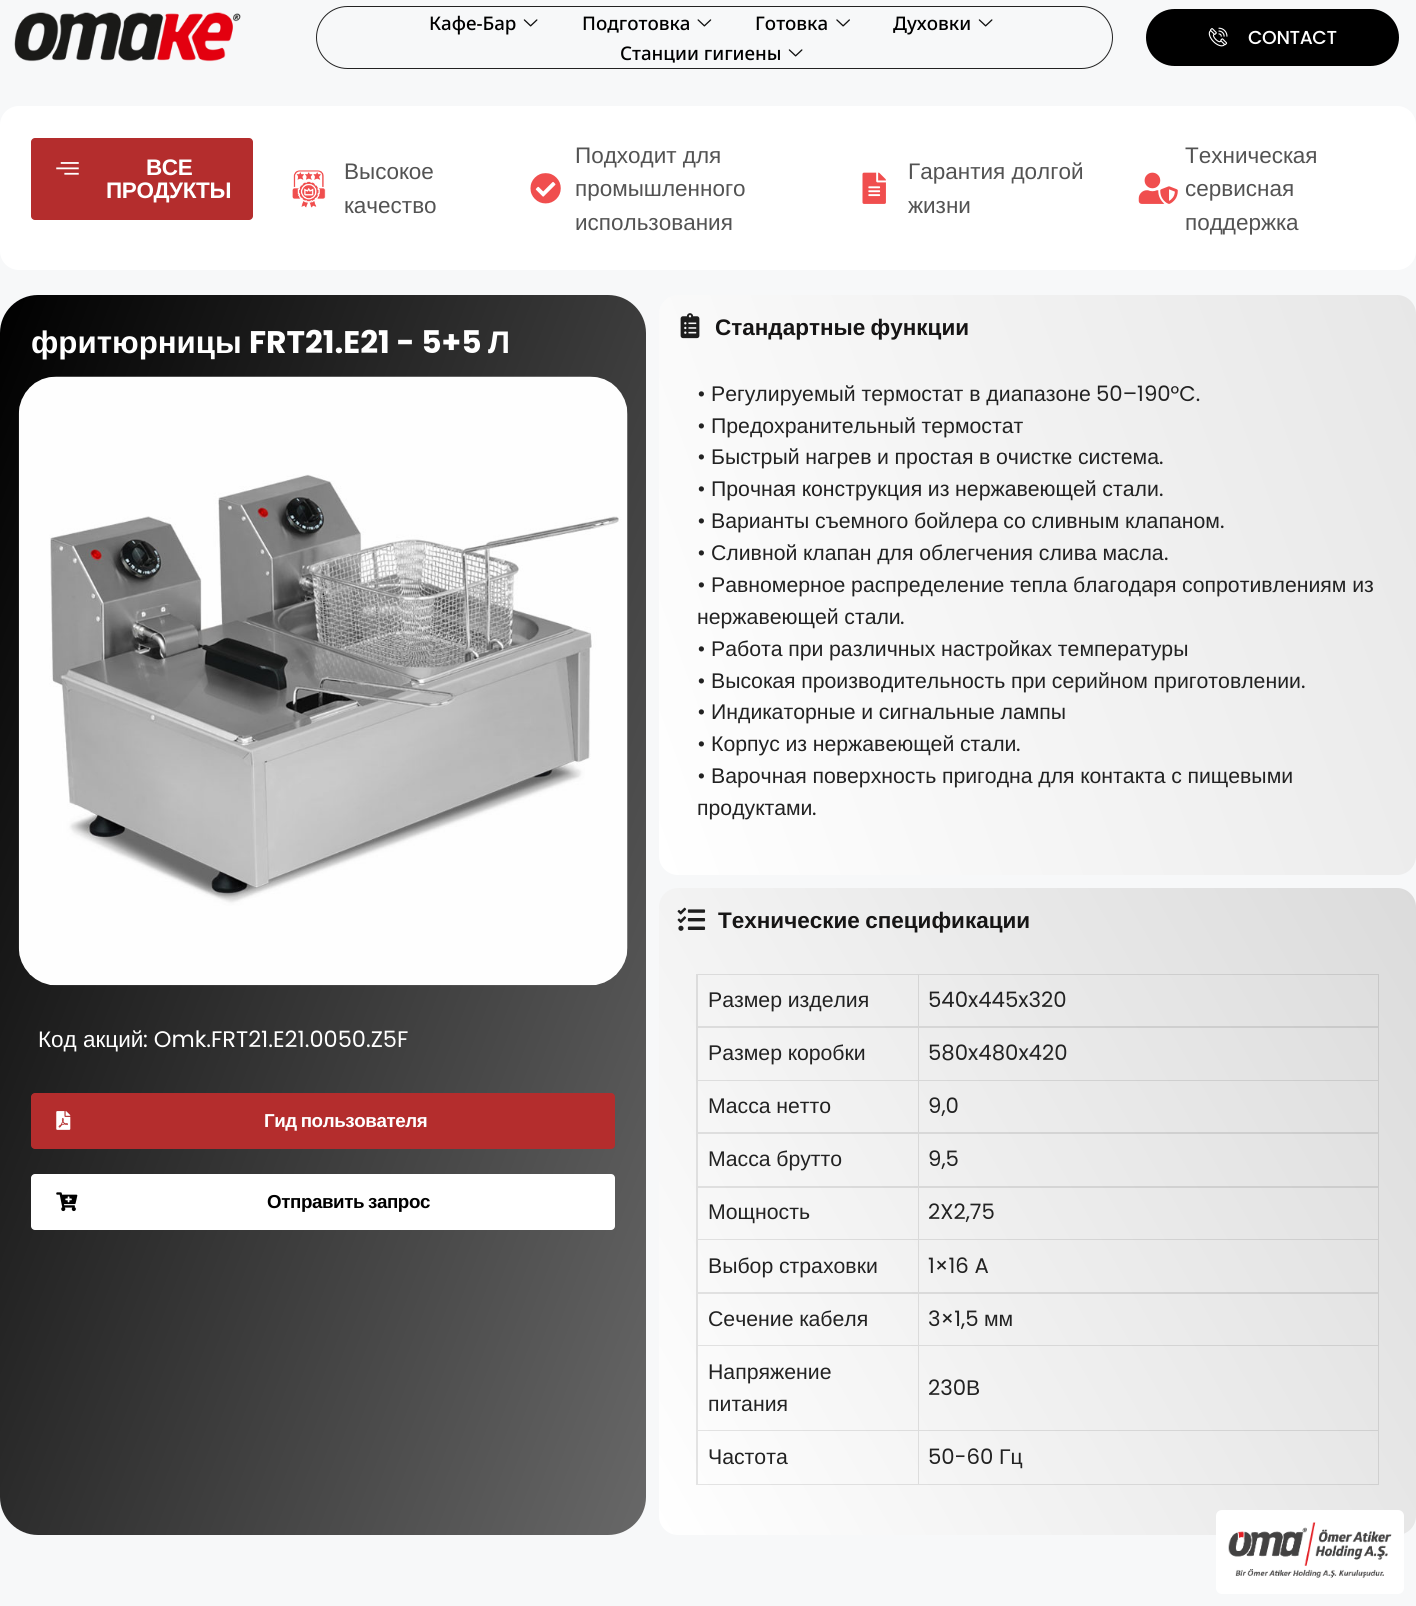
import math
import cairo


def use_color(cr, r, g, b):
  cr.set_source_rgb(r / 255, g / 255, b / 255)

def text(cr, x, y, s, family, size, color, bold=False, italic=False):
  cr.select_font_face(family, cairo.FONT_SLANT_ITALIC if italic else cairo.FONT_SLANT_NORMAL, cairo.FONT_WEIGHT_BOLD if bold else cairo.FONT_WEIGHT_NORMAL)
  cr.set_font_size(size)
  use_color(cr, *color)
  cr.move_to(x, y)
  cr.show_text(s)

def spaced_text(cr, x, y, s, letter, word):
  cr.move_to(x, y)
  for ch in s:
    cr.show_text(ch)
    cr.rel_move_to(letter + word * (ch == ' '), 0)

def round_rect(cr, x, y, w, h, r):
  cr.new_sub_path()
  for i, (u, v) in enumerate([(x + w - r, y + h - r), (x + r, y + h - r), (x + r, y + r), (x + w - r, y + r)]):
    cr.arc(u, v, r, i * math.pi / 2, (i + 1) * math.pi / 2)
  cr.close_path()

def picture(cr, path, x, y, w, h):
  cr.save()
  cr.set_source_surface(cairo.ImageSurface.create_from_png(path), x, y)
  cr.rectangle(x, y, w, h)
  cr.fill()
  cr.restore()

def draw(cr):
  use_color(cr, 247, 248, 249)
  cr.paint()
  picture(cr, "img_01.png", 14, 12, 227, 50)
  round_rect(cr, 316.5, 6.5, 796, 62, 31)
  use_color(cr, 34, 34, 34)
  cr.set_line_width(1)
  cr.stroke()
  picture(cr, "img_02.png", 523, 19, 15, 8)
  picture(cr, "img_03.png", 697, 19, 15, 8)
  picture(cr, "img_04.png", 836, 19, 14, 8)
  picture(cr, "img_02.png", 978, 19, 15, 8)
  picture(cr, "img_02.png", 788, 49, 15, 8)
  use_color(cr, 0, 0, 0)
  round_rect(cr, 1146, 9, 253, 57, 28.5)
  cr.fill()
  picture(cr, "img_05.png", 1208, 27, 20, 20)
  use_color(cr, 255, 255, 255)
  round_rect(cr, 0, 106, 1416, 164, 19)
  cr.fill()
  use_color(cr, 180, 45, 45)
  round_rect(cr, 31, 138, 222, 82, 4)
  cr.fill()
  picture(cr, "img_06.png", 56, 162, 23, 13)
  picture(cr, "img_07.png", 292, 170, 34, 38)
  picture(cr, "img_08.png", 530, 173, 31, 31)
  picture(cr, "img_09.png", 862, 172, 24, 32)
  picture(cr, "img_10.png", 1138, 172, 40, 32)
  gradient = cairo.LinearGradient(-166, 727, 812, 1103)
  gradient.add_color_stop_rgba(0, 0, 0, 0, 1)
  gradient.add_color_stop_rgba(1, 0.408, 0.408, 0.408, 1)
  cr.set_source(gradient)
  round_rect(cr, 0, 295, 646, 1240, 38)
  cr.fill()
  picture(cr, "img_11.png", 18, 376, 610, 610)
  use_color(cr, 180, 45, 45)
  round_rect(cr, 31, 1093, 584, 56, 4)
  cr.fill()
  picture(cr, "img_12.png", 56, 1111, 15, 19)
  use_color(cr, 255, 255, 255)
  round_rect(cr, 31, 1174, 584, 56, 4)
  cr.fill()
  picture(cr, "img_13.png", 56, 1192, 22, 20)
  gradient = cairo.LinearGradient(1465, 429, 610, 741)
  gradient.add_color_stop_rgba(0, 0.906, 0.906, 0.906, 1)
  gradient.add_color_stop_rgba(1, 1, 1, 1, 1)
  cr.set_source(gradient)
  round_rect(cr, 659, 295, 757, 580, 19)
  cr.fill()
  picture(cr, "img_14.png", 680, 313, 20, 26)
  gradient = cairo.LinearGradient(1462, 966, 613, 1456)
  gradient.add_color_stop_rgba(0, 0.859, 0.859, 0.859, 1)
  gradient.add_color_stop_rgba(1, 1, 1, 1, 1)
  cr.set_source(gradient)
  round_rect(cr, 659, 888, 757, 647, 19)
  cr.fill()
  picture(cr, "img_15.png", 677, 907, 29, 24)
  cr.set_source_rgba(0, 0, 0, 0.1)
  cr.new_path()
  cr.move_to(696, 974)
  cr.line_to(1379, 974)
  cr.line_to(1379, 975)
  cr.line_to(698, 975)
  cr.close_path()
  cr.fill()
  cr.new_path()
  cr.move_to(696, 1485)
  cr.line_to(696, 974)
  cr.line_to(698, 975)
  cr.line_to(698, 1485)
  cr.close_path()
  cr.fill()
  use_color(cr, 213, 213, 213)
  cr.new_path()
  cr.move_to(919, 975)
  cr.line_to(919, 1028)
  cr.line_to(918, 1026)
  cr.line_to(918, 975)
  cr.close_path()
  cr.fill()
  cr.set_source_rgba(0, 0, 0, 0.1)
  cr.new_path()
  cr.move_to(919, 1028)
  cr.line_to(698, 1028)
  cr.line_to(698, 1026)
  cr.line_to(918, 1026)
  cr.close_path()
  cr.fill()
  use_color(cr, 200, 200, 200)
  cr.new_path()
  cr.move_to(1379, 975)
  cr.line_to(1379, 1028)
  cr.line_to(1378, 1026)
  cr.line_to(1378, 975)
  cr.close_path()
  cr.fill()
  cr.set_source_rgba(0, 0, 0, 0.1)
  cr.new_path()
  cr.move_to(1379, 1028)
  cr.line_to(919, 1028)
  cr.line_to(919, 1026)
  cr.line_to(1378, 1026)
  cr.close_path()
  cr.fill()
  use_color(cr, 214, 214, 214)
  cr.new_path()
  cr.move_to(919, 1028)
  cr.line_to(919, 1081)
  cr.line_to(918, 1080)
  cr.line_to(918, 1028)
  cr.close_path()
  cr.fill()
  cr.set_source_rgba(0, 0, 0, 0.1)
  cr.new_path()
  cr.move_to(919, 1081)
  cr.line_to(698, 1081)
  cr.line_to(698, 1080)
  cr.line_to(918, 1080)
  cr.close_path()
  cr.fill()
  use_color(cr, 201, 201, 201)
  cr.new_path()
  cr.move_to(1379, 1028)
  cr.line_to(1379, 1081)
  cr.line_to(1378, 1080)
  cr.line_to(1378, 1028)
  cr.close_path()
  cr.fill()
  cr.set_source_rgba(0, 0, 0, 0.1)
  cr.new_path()
  cr.move_to(1379, 1081)
  cr.line_to(919, 1081)
  cr.line_to(919, 1080)
  cr.line_to(1378, 1080)
  cr.close_path()
  cr.fill()
  use_color(cr, 215, 215, 215)
  cr.new_path()
  cr.move_to(919, 1081)
  cr.line_to(919, 1134)
  cr.line_to(918, 1132)
  cr.line_to(918, 1081)
  cr.close_path()
  cr.fill()
  cr.set_source_rgba(0, 0, 0, 0.1)
  cr.new_path()
  cr.move_to(919, 1134)
  cr.line_to(698, 1134)
  cr.line_to(698, 1132)
  cr.line_to(918, 1132)
  cr.close_path()
  cr.fill()
  use_color(cr, 202, 202, 202)
  cr.new_path()
  cr.move_to(1379, 1081)
  cr.line_to(1379, 1134)
  cr.line_to(1378, 1132)
  cr.line_to(1378, 1081)
  cr.close_path()
  cr.fill()
  cr.set_source_rgba(0, 0, 0, 0.1)
  cr.new_path()
  cr.move_to(1379, 1134)
  cr.line_to(919, 1134)
  cr.line_to(919, 1132)
  cr.line_to(1378, 1132)
  cr.close_path()
  cr.fill()
  use_color(cr, 216, 216, 216)
  cr.new_path()
  cr.move_to(919, 1134)
  cr.line_to(919, 1188)
  cr.line_to(918, 1186)
  cr.line_to(918, 1134)
  cr.close_path()
  cr.fill()
  cr.set_source_rgba(0, 0, 0, 0.1)
  cr.new_path()
  cr.move_to(919, 1188)
  cr.line_to(698, 1188)
  cr.line_to(698, 1186)
  cr.line_to(918, 1186)
  cr.close_path()
  cr.fill()
  use_color(cr, 203, 203, 203)
  cr.new_path()
  cr.move_to(1379, 1134)
  cr.line_to(1379, 1188)
  cr.line_to(1378, 1186)
  cr.line_to(1378, 1134)
  cr.close_path()
  cr.fill()
  cr.set_source_rgba(0, 0, 0, 0.1)
  cr.new_path()
  cr.move_to(1379, 1188)
  cr.line_to(919, 1188)
  cr.line_to(919, 1186)
  cr.line_to(1378, 1186)
  cr.close_path()
  cr.fill()
  use_color(cr, 217, 217, 217)
  cr.new_path()
  cr.move_to(919, 1188)
  cr.line_to(919, 1240)
  cr.line_to(918, 1239)
  cr.line_to(918, 1188)
  cr.close_path()
  cr.fill()
  cr.set_source_rgba(0, 0, 0, 0.1)
  cr.new_path()
  cr.move_to(919, 1240)
  cr.line_to(698, 1240)
  cr.line_to(698, 1239)
  cr.line_to(918, 1239)
  cr.close_path()
  cr.fill()
  use_color(cr, 204, 204, 204)
  cr.new_path()
  cr.move_to(1379, 1188)
  cr.line_to(1379, 1240)
  cr.line_to(1378, 1239)
  cr.line_to(1378, 1188)
  cr.close_path()
  cr.fill()
  cr.set_source_rgba(0, 0, 0, 0.1)
  cr.new_path()
  cr.move_to(1379, 1240)
  cr.line_to(919, 1240)
  cr.line_to(919, 1239)
  cr.line_to(1378, 1239)
  cr.close_path()
  cr.fill()
  use_color(cr, 218, 218, 218)
  cr.new_path()
  cr.move_to(919, 1240)
  cr.line_to(919, 1294)
  cr.line_to(918, 1292)
  cr.line_to(918, 1240)
  cr.close_path()
  cr.fill()
  cr.set_source_rgba(0, 0, 0, 0.1)
  cr.new_path()
  cr.move_to(919, 1294)
  cr.line_to(698, 1294)
  cr.line_to(698, 1292)
  cr.line_to(918, 1292)
  cr.close_path()
  cr.fill()
  use_color(cr, 204, 204, 204)
  cr.new_path()
  cr.move_to(1379, 1240)
  cr.line_to(1379, 1294)
  cr.line_to(1378, 1292)
  cr.line_to(1378, 1240)
  cr.close_path()
  cr.fill()
  cr.set_source_rgba(0, 0, 0, 0.1)
  cr.new_path()
  cr.move_to(1379, 1294)
  cr.line_to(919, 1294)
  cr.line_to(919, 1292)
  cr.line_to(1378, 1292)
  cr.close_path()
  cr.fill()
  use_color(cr, 219, 219, 219)
  cr.new_path()
  cr.move_to(919, 1294)
  cr.line_to(919, 1346)
  cr.line_to(918, 1345)
  cr.line_to(918, 1294)
  cr.close_path()
  cr.fill()
  cr.set_source_rgba(0, 0, 0, 0.1)
  cr.new_path()
  cr.move_to(919, 1346)
  cr.line_to(698, 1346)
  cr.line_to(698, 1345)
  cr.line_to(918, 1345)
  cr.close_path()
  cr.fill()
  use_color(cr, 205, 205, 205)
  cr.new_path()
  cr.move_to(1379, 1294)
  cr.line_to(1379, 1346)
  cr.line_to(1378, 1345)
  cr.line_to(1378, 1294)
  cr.close_path()
  cr.fill()
  cr.set_source_rgba(0, 0, 0, 0.1)
  cr.new_path()
  cr.move_to(1379, 1346)
  cr.line_to(919, 1346)
  cr.line_to(919, 1345)
  cr.line_to(1378, 1345)
  cr.close_path()
  cr.fill()
  use_color(cr, 220, 220, 220)
  cr.new_path()
  cr.move_to(919, 1346)
  cr.line_to(919, 1431)
  cr.line_to(918, 1430)
  cr.line_to(918, 1346)
  cr.close_path()
  cr.fill()
  cr.set_source_rgba(0, 0, 0, 0.1)
  cr.new_path()
  cr.move_to(919, 1431)
  cr.line_to(698, 1431)
  cr.line_to(698, 1430)
  cr.line_to(918, 1430)
  cr.close_path()
  cr.fill()
  use_color(cr, 207, 207, 207)
  cr.new_path()
  cr.move_to(1379, 1346)
  cr.line_to(1379, 1431)
  cr.line_to(1378, 1430)
  cr.line_to(1378, 1346)
  cr.close_path()
  cr.fill()
  cr.set_source_rgba(0, 0, 0, 0.1)
  cr.new_path()
  cr.move_to(1379, 1431)
  cr.line_to(919, 1431)
  cr.line_to(919, 1430)
  cr.line_to(1378, 1430)
  cr.close_path()
  cr.fill()
  use_color(cr, 221, 221, 221)
  cr.new_path()
  cr.move_to(919, 1431)
  cr.line_to(919, 1485)
  cr.line_to(918, 1484)
  cr.line_to(918, 1431)
  cr.close_path()
  cr.fill()
  cr.set_source_rgba(0, 0, 0, 0.1)
  cr.new_path()
  cr.move_to(919, 1485)
  cr.line_to(698, 1485)
  cr.line_to(698, 1484)
  cr.line_to(918, 1484)
  cr.close_path()
  cr.fill()
  use_color(cr, 208, 208, 208)
  cr.new_path()
  cr.move_to(1379, 1431)
  cr.line_to(1379, 1485)
  cr.line_to(1378, 1484)
  cr.line_to(1378, 1431)
  cr.close_path()
  cr.fill()
  cr.set_source_rgba(0, 0, 0, 0.1)
  cr.new_path()
  cr.move_to(1379, 1485)
  cr.line_to(919, 1485)
  cr.line_to(919, 1484)
  cr.line_to(1378, 1484)
  cr.close_path()
  cr.fill()
  use_color(cr, 255, 255, 255)
  round_rect(cr, 1216, 1510, 188, 84, 6)
  cr.fill()
  picture(cr, "img_16.png", 1228, 1522, 164, 56)
  text(cr, 429, 30, "Кафе-Бар", "Noto Sans Medium", 18.75, (0, 0, 0))
  text(cr, 582, 30, "Подготовка", "Noto Sans Medium", 18.75, (0, 0, 0))
  text(cr, 755, 30, "Готовка", "Noto Sans Medium", 18.75, (0, 0, 0))
  text(cr, 893, 30, "Духовки", "Noto Sans Medium", 18.75, (0, 0, 0))
  text(cr, 620, 60, "Станции гигиены", "Noto Sans Medium", 18.75, (0, 0, 0))
  cr.select_font_face("Poppins Medium")
  use_color(cr, 255, 255, 255)
  spaced_text(cr, 1248, 44, "CONTACT", -0.4, 0)
  cr.select_font_face("Liberation Sans", cairo.FONT_SLANT_NORMAL, cairo.FONT_WEIGHT_BOLD)
  cr.set_font_size(22.5)
  spaced_text(cr, 146, 175, "ВСЕ", -0.4, 0)
  spaced_text(cr, 106, 198, "ПРОДУКТЫ", -0.4, 0)
  text(cr, 344, 179, "Высокое", "Liberation Sans", 22.5, (83, 83, 83))
  text(cr, 344, 213, "качество", "Liberation Sans", 22.5, (83, 83, 83))
  text(cr, 575, 163, "Подходит для", "Liberation Sans", 22.5, (83, 83, 83))
  text(cr, 575, 196, "промышленного", "Liberation Sans", 22.5, (83, 83, 83))
  text(cr, 575, 230, "использования", "Liberation Sans", 22.5, (83, 83, 83))
  text(cr, 908, 179, "Гарантия долгой", "Liberation Sans", 22.5, (83, 83, 83))
  text(cr, 908, 213, "жизни", "Liberation Sans", 22.5, (83, 83, 83))
  text(cr, 1185, 163, "Техническая", "Liberation Sans", 22.5, (83, 83, 83))
  text(cr, 1185, 196, "сервисная", "Liberation Sans", 22.5, (83, 83, 83))
  text(cr, 1185, 230, "поддержка", "Liberation Sans", 22.5, (83, 83, 83))
  text(cr, 31, 353, "фритюрницы", "Liberation Sans", 31.25, (255, 255, 255), bold=True)
  text(cr, 249, 353, "FRT21.E21 - 5+5", "Poppins", 31.25, (255, 255, 255), bold=True)
  text(cr, 488, 353, "Л", "Liberation Sans", 31.25, (255, 255, 255), bold=True)
  text(cr, 38, 1047, "Код акций", "Liberation Sans", 22.5, (255, 255, 255))
  text(cr, 143, 1047, ": Omk.FRT21.E21.0050.Z5F", "Poppins", 22.5, (255, 255, 255))
  cr.select_font_face("Liberation Sans", cairo.FONT_SLANT_NORMAL, cairo.FONT_WEIGHT_BOLD)
  cr.set_font_size(18.75)
  spaced_text(cr, 264, 1127, "Гид пользователя", -0.4, -1)
  use_color(cr, 0, 0, 0)
  spaced_text(cr, 267, 1208, "Отправить запрос", -0.4, -1)
  cr.set_font_size(22.5)
  use_color(cr, 22, 21, 21)
  spaced_text(cr, 715, 335, "Стандартные функции", 0, -1)
  text(cr, 697, 401, "•", "Poppins", 21.25, (34, 34, 34))
  text(cr, 711, 401, "Регулируемый термостат в диапазоне", "Liberation Sans", 21.25, (34, 34, 34))
  text(cr, 1096, 401, "50–190°C.", "Poppins", 21.25, (34, 34, 34))
  text(cr, 697, 433, "•", "Poppins", 21.25, (34, 34, 34))
  cr.select_font_face("Liberation Sans")
  spaced_text(cr, 711, 433, "Предохранительный термостат", 0, -0.25)
  text(cr, 697, 464, "•", "Poppins", 21.25, (34, 34, 34))
  cr.select_font_face("Liberation Sans")
  spaced_text(cr, 711, 464, "Быстрый нагрев и простая в очистке система", 0, -0.25)
  text(cr, 1159, 464, ".", "Poppins", 21.25, (34, 34, 34))
  text(cr, 697, 496, "•", "Poppins", 21.25, (34, 34, 34))
  cr.select_font_face("Liberation Sans")
  spaced_text(cr, 711, 496, "Прочная конструкция из нержавеющей стали", 0, -0.25)
  text(cr, 1159, 496, ".", "Poppins", 21.25, (34, 34, 34))
  text(cr, 697, 528, "•", "Poppins", 21.25, (34, 34, 34))
  cr.select_font_face("Liberation Sans")
  spaced_text(cr, 711, 528, "Варианты съемного бойлера со сливным клапаном", 0, -0.25)
  text(cr, 1220, 528, ".", "Poppins", 21.25, (34, 34, 34))
  text(cr, 697, 560, "•", "Poppins", 21.25, (34, 34, 34))
  cr.select_font_face("Liberation Sans")
  spaced_text(cr, 711, 560, "Сливной клапан для облегчения слива масла", 0, -0.25)
  text(cr, 1164, 560, ".", "Poppins", 21.25, (34, 34, 34))
  text(cr, 697, 592, "•", "Poppins", 21.25, (34, 34, 34))
  cr.select_font_face("Liberation Sans")
  spaced_text(cr, 711, 592, "Равномерное распределение тепла благодаря сопротивлениям из", 0, -0.25)
  spaced_text(cr, 697, 624, "нержавеющей стали", 0, -0.25)
  text(cr, 900, 624, ".", "Poppins", 21.25, (34, 34, 34))
  text(cr, 697, 656, "•", "Poppins", 21.25, (34, 34, 34))
  cr.select_font_face("Liberation Sans")
  spaced_text(cr, 711, 656, "Работа при различных настройках температуры", 0, -0.25)
  text(cr, 697, 688, "•", "Poppins", 21.25, (34, 34, 34))
  cr.select_font_face("Liberation Sans")
  spaced_text(cr, 711, 688, "Высокая производительность при серийном приготовлении", 0, -0.25)
  text(cr, 1301, 688, ".", "Poppins", 21.25, (34, 34, 34))
  text(cr, 697, 719, "•", "Poppins", 21.25, (34, 34, 34))
  cr.select_font_face("Liberation Sans")
  spaced_text(cr, 711, 719, "Индикаторные и сигнальные лампы", 0, -0.25)
  text(cr, 697, 751, "•", "Poppins", 21.25, (34, 34, 34))
  cr.select_font_face("Liberation Sans")
  spaced_text(cr, 711, 751, "Корпус из нержавеющей стали", 0, -0.25)
  text(cr, 1016, 751, ".", "Poppins", 21.25, (34, 34, 34))
  text(cr, 697, 783, "•", "Poppins", 21.25, (34, 34, 34))
  cr.select_font_face("Liberation Sans")
  spaced_text(cr, 711, 783, "Варочная поверхность пригодна для контакта с пищевыми", 0, -0.25)
  text(cr, 697, 815, "продуктами", "Liberation Sans", 21.25, (34, 34, 34))
  text(cr, 812, 815, ".", "Poppins", 21.25, (34, 34, 34))
  cr.select_font_face("Liberation Sans", cairo.FONT_SLANT_NORMAL, cairo.FONT_WEIGHT_BOLD)
  cr.set_font_size(22.5)
  use_color(cr, 22, 21, 21)
  spaced_text(cr, 718, 928, "Технические спецификации", 0, -1)
  cr.select_font_face("Liberation Sans")
  cr.set_font_size(21.25)
  use_color(cr, 34, 34, 34)
  spaced_text(cr, 708, 1007, "Размер изделия", 0, -0.25)
  text(cr, 928, 1007, "540x445x320", "Poppins", 21.25, (34, 34, 34))
  cr.select_font_face("Liberation Sans")
  spaced_text(cr, 708, 1060, "Размер коробки", 0, -0.25)
  text(cr, 928, 1060, "580x480x420", "Poppins", 21.25, (34, 34, 34))
  cr.select_font_face("Liberation Sans")
  spaced_text(cr, 708, 1113, "Масса нетто", 0, -0.25)
  text(cr, 928, 1113, "9,0", "Poppins", 21.25, (34, 34, 34))
  cr.select_font_face("Liberation Sans")
  spaced_text(cr, 708, 1166, "Масса брутто", 0, -0.25)
  text(cr, 928, 1166, "9,5", "Poppins", 21.25, (34, 34, 34))
  text(cr, 708, 1219, "Мощность", "Liberation Sans", 21.25, (34, 34, 34))
  text(cr, 928, 1219, "2X2,75", "Poppins", 21.25, (34, 34, 34))
  cr.select_font_face("Liberation Sans")
  spaced_text(cr, 708, 1273, "Выбор страховки", 0, -0.25)
  text(cr, 928, 1273, "1×16 A", "Poppins", 21.25, (34, 34, 34))
  cr.select_font_face("Liberation Sans")
  spaced_text(cr, 708, 1326, "Сечение кабеля", 0, -0.25)
  text(cr, 928, 1326, "3×1,5", "Poppins", 21.25, (34, 34, 34))
  text(cr, 984, 1326, "мм", "Liberation Sans", 21.25, (34, 34, 34))
  text(cr, 708, 1379, "Напряжение", "Liberation Sans", 21.25, (34, 34, 34))
  text(cr, 708, 1411, "питания", "Liberation Sans", 21.25, (34, 34, 34))
  text(cr, 928, 1395, "230", "Poppins", 21.25, (34, 34, 34))
  text(cr, 966, 1395, "В", "Liberation Sans", 21.25, (34, 34, 34))
  text(cr, 708, 1464, "Частота", "Liberation Sans", 21.25, (34, 34, 34))
  text(cr, 928, 1464, "50-60", "Poppins", 21.25, (34, 34, 34))
  text(cr, 999, 1464, "Гц", "Liberation Sans", 21.25, (34, 34, 34))


surface = cairo.ImageSurface(cairo.FORMAT_RGB24, 1416, 1606)
cr = cairo.Context(surface)
options = cairo.FontOptions()
options.set_hint_metrics(cairo.HINT_METRICS_OFF)
options.set_hint_style(cairo.HINT_STYLE_NONE)
cr.set_font_options(options)
cr.set_miter_limit(4)
draw(cr)
surface.write_to_png("out.png")
